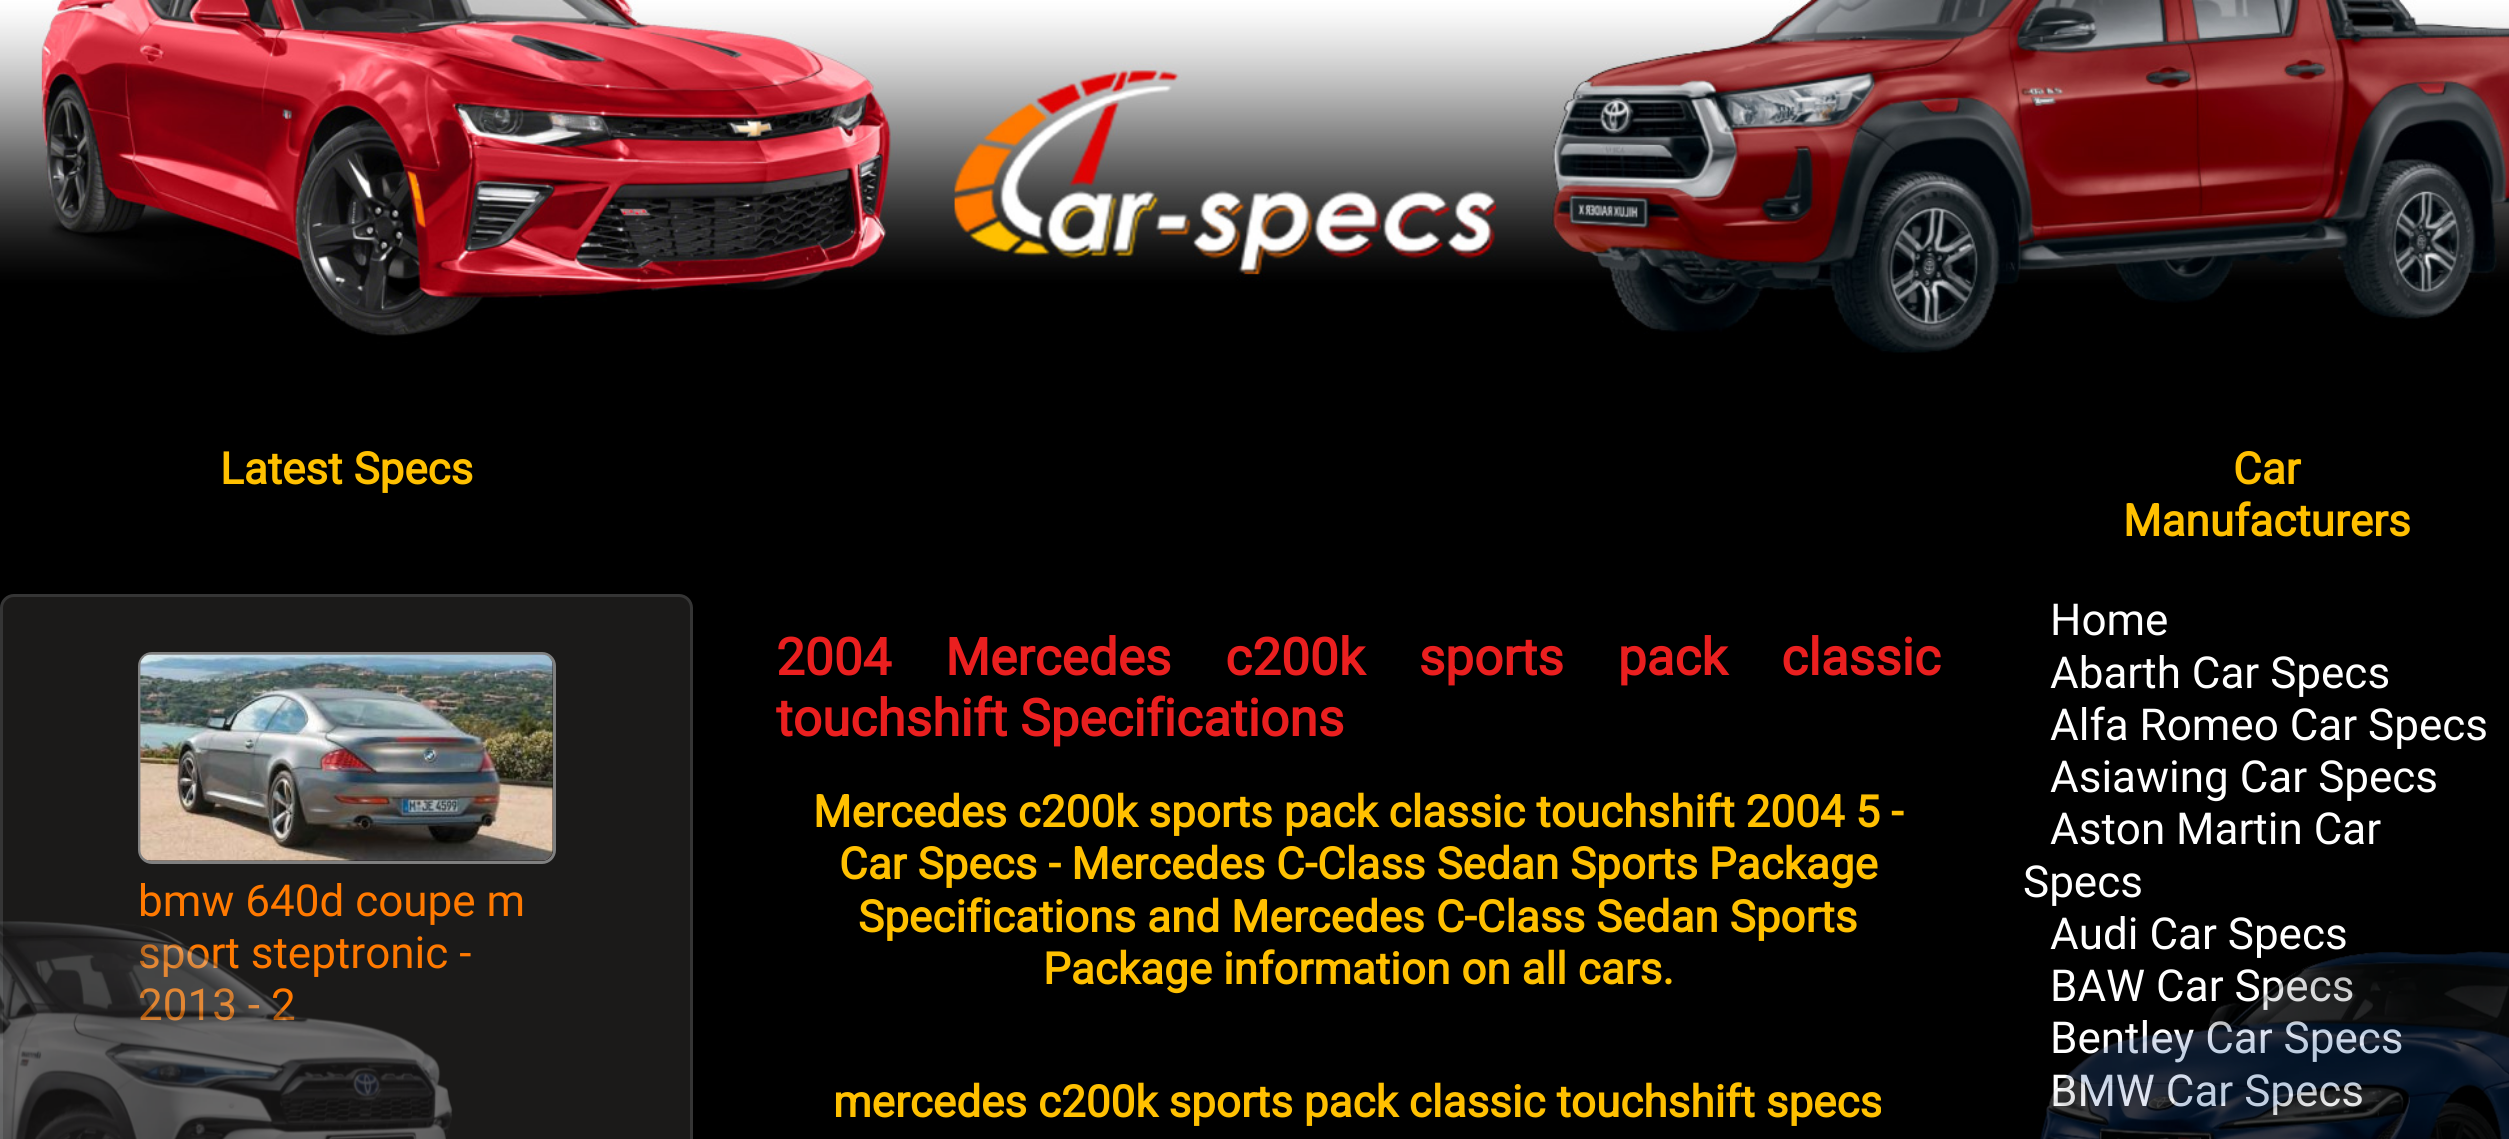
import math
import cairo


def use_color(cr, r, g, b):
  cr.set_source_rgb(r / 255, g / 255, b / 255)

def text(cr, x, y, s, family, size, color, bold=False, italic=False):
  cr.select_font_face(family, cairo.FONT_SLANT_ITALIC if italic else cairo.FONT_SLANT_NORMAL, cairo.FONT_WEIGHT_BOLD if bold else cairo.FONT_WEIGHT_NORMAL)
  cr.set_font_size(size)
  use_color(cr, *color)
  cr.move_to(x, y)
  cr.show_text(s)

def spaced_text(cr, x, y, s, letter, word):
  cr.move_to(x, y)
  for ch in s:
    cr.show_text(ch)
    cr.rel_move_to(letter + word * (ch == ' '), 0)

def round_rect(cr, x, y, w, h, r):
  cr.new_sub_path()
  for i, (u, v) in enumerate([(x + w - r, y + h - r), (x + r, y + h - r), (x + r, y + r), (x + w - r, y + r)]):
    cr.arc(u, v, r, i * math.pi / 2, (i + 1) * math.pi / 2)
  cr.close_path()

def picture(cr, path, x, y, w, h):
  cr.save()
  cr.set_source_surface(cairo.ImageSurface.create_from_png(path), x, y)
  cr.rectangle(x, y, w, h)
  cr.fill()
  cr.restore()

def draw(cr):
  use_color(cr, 0, 0, 0)
  cr.paint()
  picture(cr, "img_01.png", 0, 0, 2509, 353)
  use_color(cr, 27, 26, 25)
  round_rect(cr, 1.5, 595.5, 690, 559, 12.5)
  cr.fill_preserve()
  use_color(cr, 53, 53, 53)
  cr.set_line_width(3)
  cr.stroke()
  round_rect(cr, 139.5, 653.5, 415, 209, 12.5)
  use_color(cr, 128, 128, 128)
  cr.stroke()
  picture(cr, "img_02.png", 140, 654, 413, 207)
  text(cr, 220, 484, "Latest Specs", "Roboto", 44, (255, 192, 0), bold=True)
  text(cr, 2233, 484, "Car", "Roboto", 44, (255, 192, 0), bold=True)
  text(cr, 2123, 536, "Manufacturers", "Roboto", 44, (255, 192, 0), bold=True)
  text(cr, 138, 916, "bmw 640d coupe m", "Roboto", 44, (255, 121, 0))
  text(cr, 138, 968, "sport steptronic -", "Roboto", 44, (255, 121, 0))
  text(cr, 138, 1020, "2013 - 2", "Roboto", 44, (255, 121, 0))
  cr.select_font_face("Roboto", cairo.FONT_SLANT_NORMAL, cairo.FONT_WEIGHT_BOLD)
  cr.set_font_size(51.3)
  use_color(cr, 234, 31, 31)
  spaced_text(cr, 776, 675, "2004 Mercedes c200k sports pack classic", 0, 41.25)
  text(cr, 776, 736, "touchshift Specifications", "Roboto", 51.3, (234, 31, 31), bold=True)
  text(cr, 813, 827, "Mercedes c200k sports pack classic touchshift 2004 5 -", "Roboto", 44, (255, 192, 0), bold=True)
  text(cr, 839, 879, "Car Specs - Mercedes C-Class Sedan Sports Package", "Roboto", 44, (255, 192, 0), bold=True)
  text(cr, 858, 932, "Specifications and Mercedes C-Class Sedan Sports", "Roboto", 44, (255, 192, 0), bold=True)
  text(cr, 1043, 984, "Package information on all cars.", "Roboto", 44, (255, 192, 0), bold=True)
  text(cr, 833, 1117, "mercedes c200k sports pack classic touchshift specs", "Roboto", 44, (255, 192, 0), bold=True)
  text(cr, 2050, 635, "Home", "Roboto", 44, (255, 255, 255))
  text(cr, 2050, 688, "Abarth Car Specs", "Roboto", 44, (255, 255, 255))
  text(cr, 2050, 740, "Alfa Romeo Car Specs", "Roboto", 44, (255, 255, 255))
  text(cr, 2050, 792, "Asiawing Car Specs", "Roboto", 44, (255, 255, 255))
  text(cr, 2050, 844, "Aston Martin Car", "Roboto", 44, (255, 255, 255))
  text(cr, 2023, 897, "Specs", "Roboto", 44, (255, 255, 255))
  text(cr, 2050, 949, "Audi Car Specs", "Roboto", 44, (255, 255, 255))
  text(cr, 2050, 1001, "BAW Car Specs", "Roboto", 44, (255, 255, 255))
  text(cr, 2050, 1053, "Bentley Car Specs", "Roboto", 44, (255, 255, 255))
  text(cr, 2050, 1106, "BMW Car Specs", "Roboto", 44, (255, 255, 255))
  picture(cr, "img_03.png", 0, 921, 453, 218)
  picture(cr, "img_04.png", 2040, 951, 469, 188)


surface = cairo.ImageSurface(cairo.FORMAT_RGB24, 2509, 1139)
cr = cairo.Context(surface)
options = cairo.FontOptions()
options.set_hint_metrics(cairo.HINT_METRICS_OFF)
options.set_hint_style(cairo.HINT_STYLE_NONE)
cr.set_font_options(options)
cr.set_miter_limit(4)
draw(cr)
surface.write_to_png("out.png")
